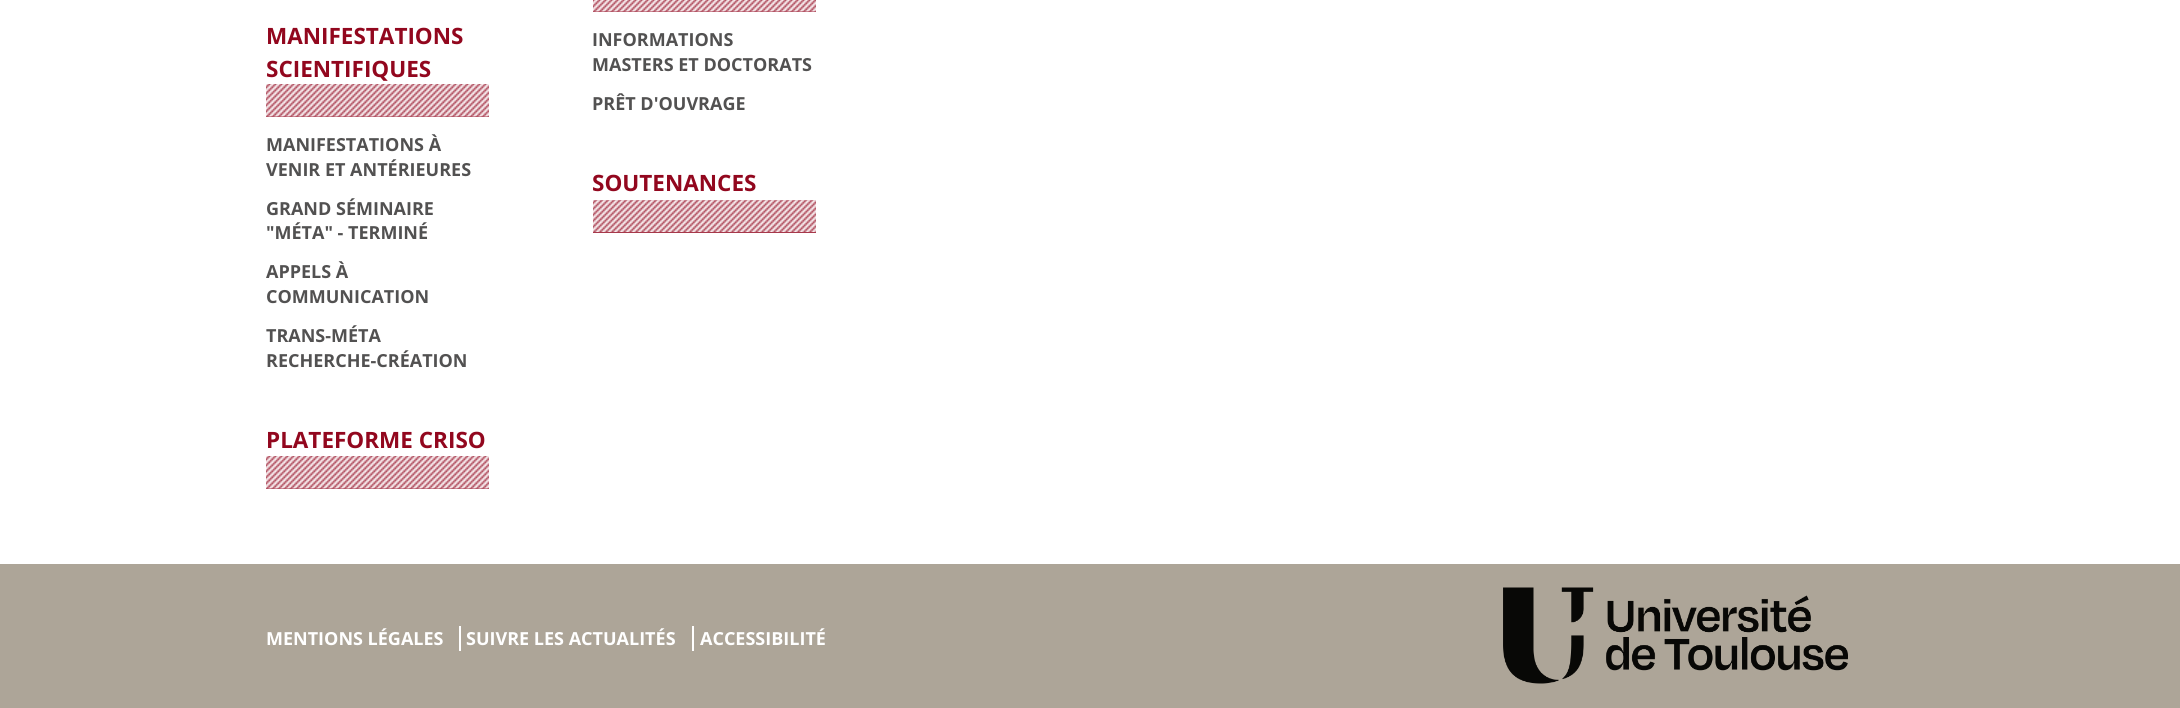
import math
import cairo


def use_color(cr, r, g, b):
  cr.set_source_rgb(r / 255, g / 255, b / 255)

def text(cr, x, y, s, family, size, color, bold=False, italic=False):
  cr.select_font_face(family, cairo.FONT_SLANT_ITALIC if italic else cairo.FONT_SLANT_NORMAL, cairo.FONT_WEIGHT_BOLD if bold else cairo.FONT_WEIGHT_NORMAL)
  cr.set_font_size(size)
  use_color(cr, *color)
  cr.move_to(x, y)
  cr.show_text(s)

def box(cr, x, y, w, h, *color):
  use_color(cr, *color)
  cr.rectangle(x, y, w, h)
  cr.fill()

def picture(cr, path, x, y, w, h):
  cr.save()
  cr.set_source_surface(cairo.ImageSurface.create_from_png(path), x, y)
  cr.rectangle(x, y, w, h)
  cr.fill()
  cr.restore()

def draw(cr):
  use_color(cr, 255, 255, 255)
  cr.paint()
  box(cr, 266, 84, 223, 33, 167, 56, 75)
  picture(cr, "img_01.png", 266, 84, 223, 33)
  box(cr, 266, 456, 223, 33, 167, 56, 75)
  picture(cr, "img_01.png", 266, 456, 223, 33)
  box(cr, 593, 0, 223, 12, 167, 56, 75)
  picture(cr, "img_02.png", 593, 0, 223, 12)
  box(cr, 593, 200, 223, 33, 167, 56, 75)
  picture(cr, "img_03.png", 593, 200, 223, 32)
  box(cr, 0, 564, 2180, 144, 173, 165, 152)
  box(cr, 459, 626, 2, 25, 255, 255, 255)
  box(cr, 692, 626, 2, 25, 255, 255, 255)
  picture(cr, "img_04.png", 1503, 587, 345, 97)
  text(cr, 266, 44, "MANIFESTATIONS", "Open Sans", 22.5, (146, 7, 30), bold=True)
  text(cr, 266, 77, "SCIENTIFIQUES", "Open Sans", 22.5, (146, 7, 30), bold=True)
  text(cr, 266, 151, "MANIFESTATIONS À", "Open Sans", 18, (82, 81, 81), bold=True)
  text(cr, 266, 176, "VENIR ET ANTÉRIEURES", "Open Sans", 18, (82, 81, 81), bold=True)
  text(cr, 266, 215, "GRAND SÉMINAIRE", "Open Sans", 18, (82, 81, 81), bold=True)
  text(cr, 266, 239, "\"MÉTA\" - TERMINÉ", "Open Sans", 18, (82, 81, 81), bold=True)
  text(cr, 266, 278, "APPELS À", "Open Sans", 18, (82, 81, 81), bold=True)
  text(cr, 266, 303, "COMMUNICATION", "Open Sans", 18, (82, 81, 81), bold=True)
  text(cr, 266, 342, "TRANS-MÉTA", "Open Sans", 18, (82, 81, 81), bold=True)
  text(cr, 266, 367, "RECHERCHE-CRÉATION", "Open Sans", 18, (82, 81, 81), bold=True)
  text(cr, 266, 448, "PLATEFORME CRISO", "Open Sans", 22.5, (146, 7, 30), bold=True)
  text(cr, 592, 46, "INFORMATIONS", "Open Sans", 18, (82, 81, 81), bold=True)
  text(cr, 592, 71, "MASTERS ET DOCTORATS", "Open Sans", 18, (82, 81, 81), bold=True)
  text(cr, 592, 110, "PRÊT D'OUVRAGE", "Open Sans", 18, (82, 81, 81), bold=True)
  text(cr, 592, 191, "SOUTENANCES", "Open Sans", 22.5, (146, 7, 30), bold=True)
  text(cr, 266, 645, "MENTIONS LÉGALES", "Open Sans", 18, (255, 255, 255), bold=True)
  text(cr, 466, 645, "SUIVRE LES ACTUALITÉS", "Open Sans", 18, (255, 255, 255), bold=True)
  text(cr, 700, 645, "ACCESSIBILITÉ", "Open Sans", 18, (255, 255, 255), bold=True)


surface = cairo.ImageSurface(cairo.FORMAT_RGB24, 2180, 708)
cr = cairo.Context(surface)
options = cairo.FontOptions()
options.set_hint_metrics(cairo.HINT_METRICS_OFF)
options.set_hint_style(cairo.HINT_STYLE_NONE)
cr.set_font_options(options)
cr.set_miter_limit(4)
draw(cr)
surface.write_to_png("out.png")
